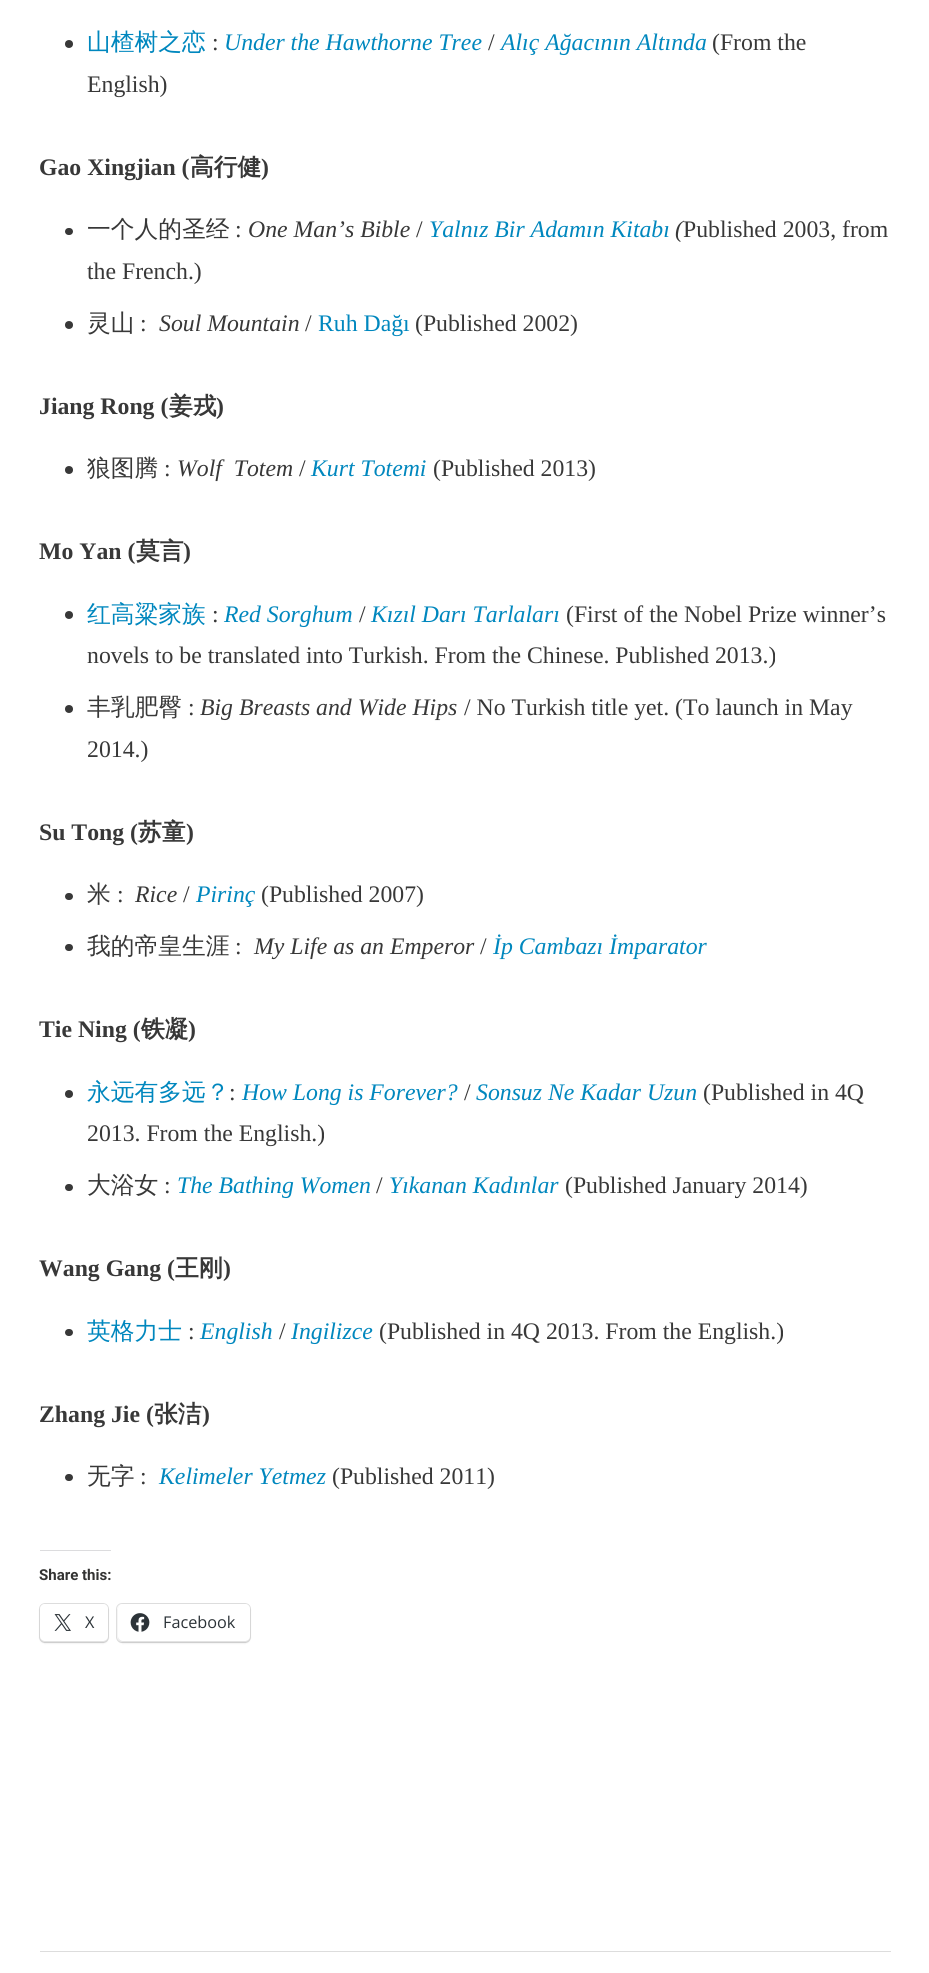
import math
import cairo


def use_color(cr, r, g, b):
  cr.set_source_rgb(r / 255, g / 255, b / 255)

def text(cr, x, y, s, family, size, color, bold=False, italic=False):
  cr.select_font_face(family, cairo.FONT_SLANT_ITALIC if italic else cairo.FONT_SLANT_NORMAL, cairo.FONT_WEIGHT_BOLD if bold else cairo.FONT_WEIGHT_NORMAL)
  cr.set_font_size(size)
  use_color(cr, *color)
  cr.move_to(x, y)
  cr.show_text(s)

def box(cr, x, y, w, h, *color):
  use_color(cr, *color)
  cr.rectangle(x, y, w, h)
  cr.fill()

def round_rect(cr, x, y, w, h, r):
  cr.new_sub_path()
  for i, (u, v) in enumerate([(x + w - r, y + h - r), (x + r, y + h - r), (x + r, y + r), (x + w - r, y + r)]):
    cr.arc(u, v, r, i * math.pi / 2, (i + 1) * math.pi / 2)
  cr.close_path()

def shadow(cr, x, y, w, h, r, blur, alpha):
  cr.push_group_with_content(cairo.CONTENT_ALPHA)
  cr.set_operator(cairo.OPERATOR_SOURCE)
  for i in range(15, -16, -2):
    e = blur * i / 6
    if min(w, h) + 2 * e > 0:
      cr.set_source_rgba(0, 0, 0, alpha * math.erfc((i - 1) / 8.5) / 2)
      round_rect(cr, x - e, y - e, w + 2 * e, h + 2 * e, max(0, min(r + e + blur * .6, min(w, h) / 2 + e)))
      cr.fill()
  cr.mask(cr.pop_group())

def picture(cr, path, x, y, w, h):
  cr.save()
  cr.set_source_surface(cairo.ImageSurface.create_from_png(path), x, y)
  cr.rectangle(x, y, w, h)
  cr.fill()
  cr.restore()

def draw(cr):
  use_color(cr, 255, 255, 255)
  cr.paint()
  use_color(cr, 56, 56, 56)
  cr.arc(69, 44, 4, 0, 2 * math.pi)
  cr.fill()
  round_rect(cr, 65, 228, 8, 7, 3.5)
  cr.fill()
  cr.arc(69, 325, 4, 0, 2 * math.pi)
  cr.fill()
  cr.arc(69, 470, 4, 0, 2 * math.pi)
  cr.fill()
  cr.arc(69, 615, 4, 0, 2 * math.pi)
  cr.fill()
  cr.arc(69, 709, 4, 0, 2 * math.pi)
  cr.fill()
  round_rect(cr, 65, 893, 8, 7, 3.5)
  cr.fill()
  round_rect(cr, 65, 944, 8, 7, 3.5)
  cr.fill()
  cr.arc(69, 1094, 4, 0, 2 * math.pi)
  cr.fill()
  round_rect(cr, 65, 1184, 8, 7, 3.5)
  cr.fill()
  round_rect(cr, 65, 1329, 8, 7, 3.5)
  cr.fill()
  round_rect(cr, 65, 1474, 8, 7, 3.5)
  cr.fill()
  box(cr, 40, 1550, 71, 1, 220, 220, 222)
  round_rect(cr, 39.5, 1603.5, 69, 39, 5.5)
  use_color(cr, 224, 224, 224)
  cr.set_line_width(1)
  cr.stroke()
  use_color(cr, 0, 0, 0)
  shadow(cr, 40, 1605, 68, 38, 5, 1, 0.12)
  use_color(cr, 255, 255, 255)
  round_rect(cr, 40, 1604, 68, 37, 5)
  cr.fill()
  picture(cr, "img_01.png", 54, 1614, 17, 17)
  round_rect(cr, 116.5, 1603.5, 134, 39, 5.5)
  use_color(cr, 224, 224, 224)
  cr.stroke()
  use_color(cr, 0, 0, 0)
  shadow(cr, 118, 1605, 132, 38, 5, 1, 0.12)
  use_color(cr, 255, 255, 255)
  round_rect(cr, 118, 1604, 132, 37, 5)
  cr.fill()
  picture(cr, "img_02.png", 130, 1613, 20, 19)
  box(cr, 40, 1951, 851, 1, 221, 221, 221)
  text(cr, 87, 50, "山楂树之恋", "WenQuanYi Zen Hei Medium", 23.75, (0, 135, 190))
  text(cr, 212, 50, ":", "Liberation Serif", 23.75, (56, 56, 56))
  text(cr, 224, 50, "Under the Hawthorne Tree", "Liberation Serif", 23.75, (0, 135, 190), italic=True)
  text(cr, 488, 50, "/", "Liberation Serif", 23.75, (56, 56, 56))
  text(cr, 501, 50, "Alıç Ağacının Altında", "Liberation Serif", 23.75, (0, 135, 190), italic=True)
  text(cr, 712, 50, "(From the", "Liberation Serif", 23.75, (56, 56, 56))
  text(cr, 87, 92, "English)", "Liberation Serif", 23.75, (56, 56, 56))
  text(cr, 39, 175, "Gao Xingjian (", "Liberation Serif", 23.75, (56, 56, 56), bold=True)
  text(cr, 190, 175, "高行健", "WenQuanYi Zen Hei", 23.75, (56, 56, 56), bold=True)
  text(cr, 261, 175, ")", "Liberation Serif", 23.75, (56, 56, 56), bold=True)
  text(cr, 87, 237, "一个人的圣经", "WenQuanYi Zen Hei Medium", 23.75, (56, 56, 56))
  text(cr, 235, 237, ":", "Liberation Serif", 23.75, (56, 56, 56))
  text(cr, 248, 237, "One Man’s Bible", "Liberation Serif", 23.75, (56, 56, 56), italic=True)
  text(cr, 416, 237, "/", "Liberation Serif", 23.75, (56, 56, 56))
  text(cr, 429, 237, "Yalnız Bir Adamın Kitabı", "Liberation Serif", 23.75, (0, 135, 190), italic=True)
  text(cr, 675, 237, "(", "Liberation Serif", 23.75, (56, 56, 56), italic=True)
  text(cr, 683, 237, "Published 2003, from", "Liberation Serif", 23.75, (56, 56, 56))
  text(cr, 87, 279, "the French.)", "Liberation Serif", 23.75, (56, 56, 56))
  text(cr, 87, 331, "灵山", "WenQuanYi Zen Hei Medium", 23.75, (56, 56, 56))
  text(cr, 140, 331, ":", "Liberation Serif", 23.75, (56, 56, 56))
  text(cr, 159, 331, "Soul Mountain", "Liberation Serif", 23.75, (56, 56, 56), italic=True)
  text(cr, 305, 331, "/", "Liberation Serif", 23.75, (56, 56, 56))
  text(cr, 318, 331, "Ruh Dağı", "Liberation Serif", 23.75, (0, 135, 190))
  text(cr, 415, 331, "(Published 2002)", "Liberation Serif", 23.75, (56, 56, 56))
  text(cr, 39, 414, "Jiang Rong (", "Liberation Serif", 23.75, (56, 56, 56), bold=True)
  text(cr, 169, 414, "姜戎", "WenQuanYi Zen Hei", 23.75, (56, 56, 56), bold=True)
  text(cr, 216, 414, ")", "Liberation Serif", 23.75, (56, 56, 56), bold=True)
  text(cr, 87, 476, "狼图腾", "WenQuanYi Zen Hei Medium", 23.75, (56, 56, 56))
  text(cr, 164, 476, ":", "Liberation Serif", 23.75, (56, 56, 56))
  text(cr, 177, 476, "Wolf  Totem", "Liberation Serif", 23.75, (56, 56, 56), italic=True)
  text(cr, 299, 476, "/", "Liberation Serif", 23.75, (56, 56, 56))
  text(cr, 311, 476, "Kurt Totemi", "Liberation Serif", 23.75, (0, 135, 190), italic=True)
  text(cr, 433, 476, "(Published 2013)", "Liberation Serif", 23.75, (56, 56, 56))
  text(cr, 39, 559, "Mo Yan (", "Liberation Serif", 23.75, (56, 56, 56), bold=True)
  text(cr, 136, 559, "莫言", "WenQuanYi Zen Hei", 23.75, (56, 56, 56), bold=True)
  text(cr, 183, 559, ")", "Liberation Serif", 23.75, (56, 56, 56), bold=True)
  text(cr, 87, 622, "红高粱家族", "WenQuanYi Zen Hei Medium", 23.75, (0, 135, 190))
  text(cr, 212, 622, ":", "Liberation Serif", 23.75, (56, 56, 56))
  text(cr, 224, 622, "Red Sorghum", "Liberation Serif", 23.75, (0, 135, 190), italic=True)
  text(cr, 359, 622, "/", "Liberation Serif", 23.75, (56, 56, 56))
  text(cr, 371, 622, "Kızıl Darı Tarlaları", "Liberation Serif", 23.75, (0, 135, 190), italic=True)
  text(cr, 566, 622, "(First of the Nobel Prize winner’s", "Liberation Serif", 23.75, (56, 56, 56))
  text(cr, 87, 663, "novels to be translated into Turkish. From the Chinese. Published 2013.)", "Liberation Serif", 23.75, (56, 56, 56))
  text(cr, 87, 715, "丰乳肥臀", "WenQuanYi Zen Hei Medium", 23.75, (56, 56, 56))
  text(cr, 188, 715, ":", "Liberation Serif", 23.75, (56, 56, 56))
  text(cr, 200, 715, "Big Breasts and Wide Hips", "Liberation Serif", 23.75, (56, 56, 56), italic=True)
  text(cr, 464, 715, "/ No Turkish title yet. (To launch in May", "Liberation Serif", 23.75, (56, 56, 56))
  text(cr, 87, 757, "2014.)", "Liberation Serif", 23.75, (56, 56, 56))
  text(cr, 39, 840, "Su Tong (", "Liberation Serif", 23.75, (56, 56, 56), bold=True)
  text(cr, 138, 840, "苏童", "WenQuanYi Zen Hei", 23.75, (56, 56, 56), bold=True)
  text(cr, 186, 840, ")", "Liberation Serif", 23.75, (56, 56, 56), bold=True)
  text(cr, 87, 902, "米", "WenQuanYi Zen Hei Medium", 23.75, (56, 56, 56))
  text(cr, 117, 902, ":", "Liberation Serif", 23.75, (56, 56, 56))
  text(cr, 135, 902, "Rice", "Liberation Serif", 23.75, (56, 56, 56), italic=True)
  text(cr, 183, 902, "/", "Liberation Serif", 23.75, (56, 56, 56))
  text(cr, 196, 902, "Pirinç", "Liberation Serif", 23.75, (0, 135, 190), italic=True)
  text(cr, 261, 902, "(Published 2007)", "Liberation Serif", 23.75, (56, 56, 56))
  text(cr, 87, 954, "我的帝皇生涯", "WenQuanYi Zen Hei Medium", 23.75, (56, 56, 56))
  text(cr, 235, 954, ":", "Liberation Serif", 23.75, (56, 56, 56))
  text(cr, 254, 954, "My Life as an Emperor", "Liberation Serif", 23.75, (56, 56, 56), italic=True)
  text(cr, 480, 954, "/", "Liberation Serif", 23.75, (56, 56, 56))
  text(cr, 493, 954, "İp Cambazı İmparator", "Liberation Serif", 23.75, (0, 135, 190), italic=True)
  text(cr, 39, 1037, "Tie Ning (", "Liberation Serif", 23.75, (56, 56, 56), bold=True)
  text(cr, 141, 1037, "铁凝", "WenQuanYi Zen Hei", 23.75, (56, 56, 56), bold=True)
  text(cr, 188, 1037, ")", "Liberation Serif", 23.75, (56, 56, 56), bold=True)
  text(cr, 87, 1100, "永远有多远？", "WenQuanYi Zen Hei Medium", 23.75, (0, 135, 190))
  text(cr, 229, 1100, ":", "Liberation Serif", 23.75, (56, 56, 56))
  text(cr, 242, 1100, "How Long is Forever?", "Liberation Serif", 23.75, (0, 135, 190), italic=True)
  text(cr, 464, 1100, "/", "Liberation Serif", 23.75, (56, 56, 56))
  text(cr, 476, 1100, "Sonsuz Ne Kadar Uzun", "Liberation Serif", 23.75, (0, 135, 190), italic=True)
  text(cr, 703, 1100, "(Published in 4Q", "Liberation Serif", 23.75, (56, 56, 56))
  text(cr, 87, 1141, "2013. From the English.)", "Liberation Serif", 23.75, (56, 56, 56))
  text(cr, 87, 1193, "大浴女", "WenQuanYi Zen Hei Medium", 23.75, (56, 56, 56))
  text(cr, 164, 1193, ":", "Liberation Serif", 23.75, (56, 56, 56))
  text(cr, 177, 1193, "The Bathing Women", "Liberation Serif", 23.75, (0, 135, 190), italic=True)
  text(cr, 376, 1193, "/", "Liberation Serif", 23.75, (56, 56, 56))
  text(cr, 389, 1193, "Yıkanan Kadınlar", "Liberation Serif", 23.75, (0, 135, 190), italic=True)
  text(cr, 565, 1193, "(Published January 2014)", "Liberation Serif", 23.75, (56, 56, 56))
  text(cr, 39, 1276, "Wang Gang (", "Liberation Serif", 23.75, (56, 56, 56), bold=True)
  text(cr, 175, 1276, "王刚", "WenQuanYi Zen Hei", 23.75, (56, 56, 56), bold=True)
  text(cr, 223, 1276, ")", "Liberation Serif", 23.75, (56, 56, 56), bold=True)
  text(cr, 87, 1339, "英格力士", "WenQuanYi Zen Hei Medium", 23.75, (0, 135, 190))
  text(cr, 188, 1339, ":", "Liberation Serif", 23.75, (56, 56, 56))
  text(cr, 200, 1339, "English", "Liberation Serif", 23.75, (0, 135, 190), italic=True)
  text(cr, 279, 1339, "/", "Liberation Serif", 23.75, (56, 56, 56))
  text(cr, 291, 1339, "Ingilizce", "Liberation Serif", 23.75, (0, 135, 190), italic=True)
  text(cr, 379, 1339, "(Published in 4Q 2013. From the English.)", "Liberation Serif", 23.75, (56, 56, 56))
  text(cr, 39, 1422, "Zhang Jie (", "Liberation Serif", 23.75, (56, 56, 56), bold=True)
  text(cr, 154, 1422, "张洁", "WenQuanYi Zen Hei", 23.75, (56, 56, 56), bold=True)
  text(cr, 202, 1422, ")", "Liberation Serif", 23.75, (56, 56, 56), bold=True)
  text(cr, 87, 1484, "无字", "WenQuanYi Zen Hei Medium", 23.75, (56, 56, 56))
  text(cr, 140, 1484, ":", "Liberation Serif", 23.75, (56, 56, 56))
  text(cr, 159, 1484, "Kelimeler Yetmez", "Liberation Serif", 23.75, (0, 135, 190), italic=True)
  text(cr, 332, 1484, "(Published 2011)", "Liberation Serif", 23.75, (56, 56, 56))
  text(cr, 39, 1580, "Share this:", "Roboto", 15, (51, 51, 50), bold=True)
  text(cr, 85, 1628, "X", "Open Sans", 16.25, (44, 51, 56))
  text(cr, 163, 1628, "Facebook", "Open Sans", 16.25, (44, 51, 56))


surface = cairo.ImageSurface(cairo.FORMAT_RGB24, 929, 1973)
cr = cairo.Context(surface)
options = cairo.FontOptions()
options.set_hint_metrics(cairo.HINT_METRICS_OFF)
options.set_hint_style(cairo.HINT_STYLE_NONE)
cr.set_font_options(options)
cr.set_miter_limit(4)
draw(cr)
surface.write_to_png("out.png")
